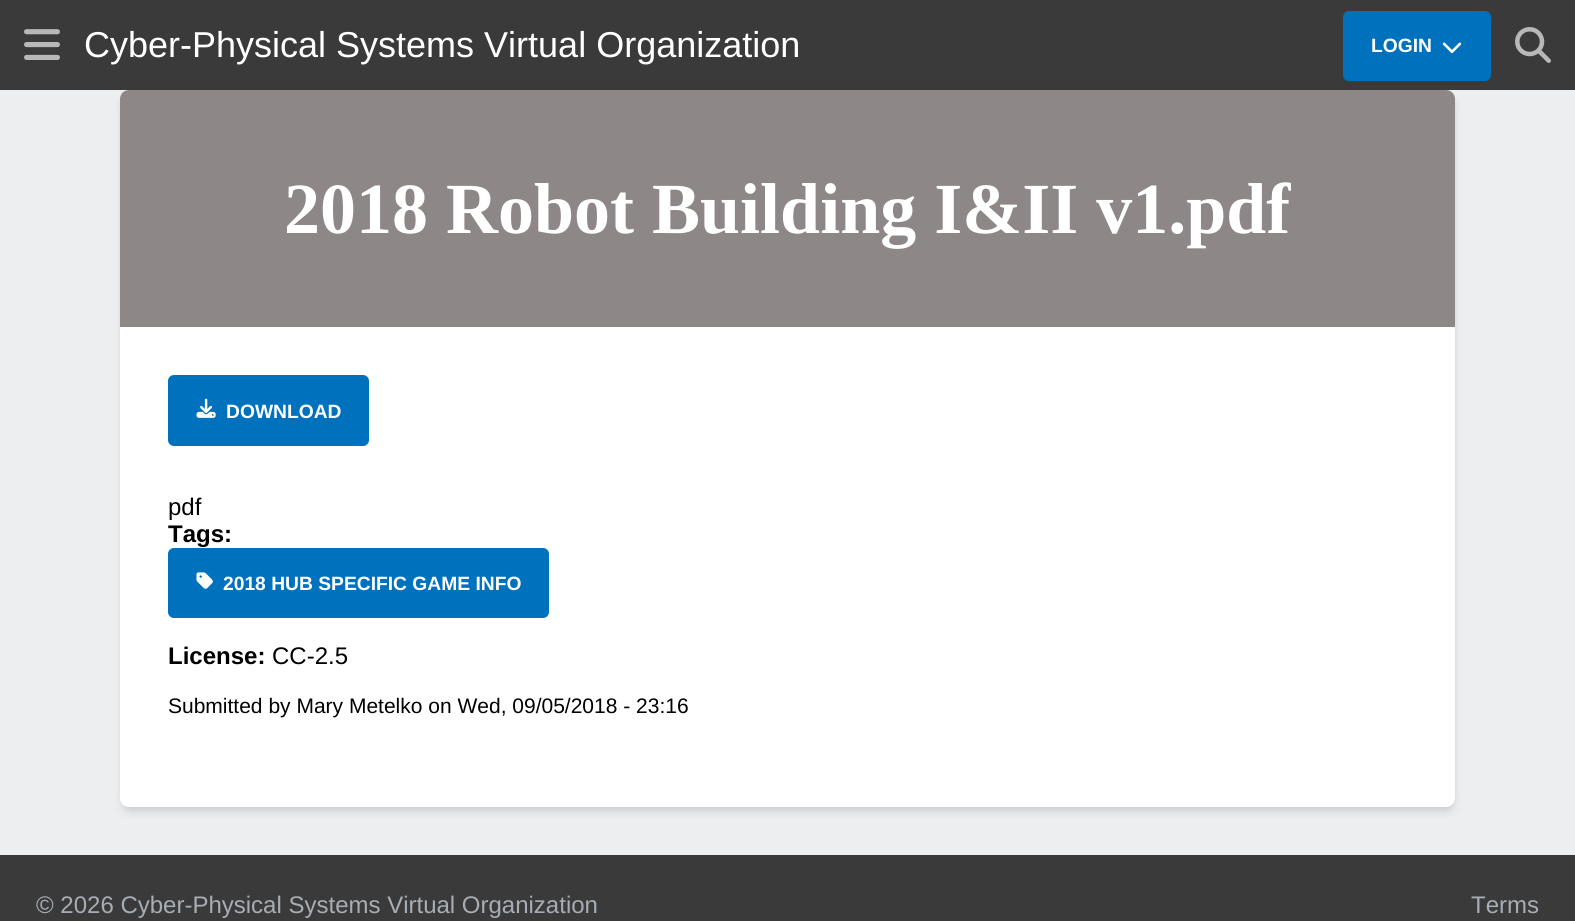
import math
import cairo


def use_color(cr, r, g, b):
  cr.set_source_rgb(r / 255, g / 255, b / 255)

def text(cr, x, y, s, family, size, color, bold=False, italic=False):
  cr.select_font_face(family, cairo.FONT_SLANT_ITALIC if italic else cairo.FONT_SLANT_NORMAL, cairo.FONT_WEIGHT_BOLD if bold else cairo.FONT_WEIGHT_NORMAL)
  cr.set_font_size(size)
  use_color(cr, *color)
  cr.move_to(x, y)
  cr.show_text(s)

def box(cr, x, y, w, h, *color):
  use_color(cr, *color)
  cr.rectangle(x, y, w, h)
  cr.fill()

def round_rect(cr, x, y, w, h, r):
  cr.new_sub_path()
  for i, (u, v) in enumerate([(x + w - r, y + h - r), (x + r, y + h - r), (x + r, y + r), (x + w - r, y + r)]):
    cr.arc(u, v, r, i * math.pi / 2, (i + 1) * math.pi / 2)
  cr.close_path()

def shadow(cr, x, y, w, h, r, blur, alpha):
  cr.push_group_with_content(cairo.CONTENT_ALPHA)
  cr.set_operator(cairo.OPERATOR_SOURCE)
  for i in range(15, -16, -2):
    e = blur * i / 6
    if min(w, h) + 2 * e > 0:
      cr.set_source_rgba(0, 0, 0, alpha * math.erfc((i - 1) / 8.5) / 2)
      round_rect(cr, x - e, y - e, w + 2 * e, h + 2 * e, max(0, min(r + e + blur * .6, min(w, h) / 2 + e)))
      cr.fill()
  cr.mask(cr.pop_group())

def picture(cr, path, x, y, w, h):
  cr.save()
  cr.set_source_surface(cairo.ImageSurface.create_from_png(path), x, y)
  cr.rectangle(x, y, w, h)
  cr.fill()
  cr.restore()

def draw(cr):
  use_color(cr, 237, 238, 239)
  cr.paint()
  use_color(cr, 0, 0, 0)
  shadow(cr, 122, 95, 1332, 714, 8, 3, 0.06)
  shadow(cr, 122, 98, 1332, 714, 8, 4.5, 0.1)
  box(cr, 0, 0, 1575, 90, 59, 58, 58)
  picture(cr, "img_01.png", 24, 29, 36, 31)
  use_color(cr, 0, 113, 189)
  round_rect(cr, 1343, 11, 148, 70, 6)
  cr.fill()
  picture(cr, "img_02.png", 1442, 42, 20, 11)
  picture(cr, "img_03.png", 1515, 27, 36, 36)
  use_color(cr, 255, 255, 255)
  round_rect(cr, 120, 90, 1335, 717, 9)
  cr.fill()
  use_color(cr, 141, 135, 135)
  cr.new_path()
  cr.move_to(129, 90)
  cr.line_to(1446, 90)
  cr.curve_to(1451, 90, 1455, 94, 1455, 99)
  cr.line_to(1455, 327)
  cr.line_to(120, 327)
  cr.line_to(120, 99)
  cr.curve_to(120, 94, 124, 90, 129, 90)
  cr.close_path()
  cr.fill()
  use_color(cr, 0, 113, 189)
  round_rect(cr, 168, 375, 201, 71, 6)
  cr.fill()
  picture(cr, "img_04.png", 196, 398, 20, 20)
  round_rect(cr, 168, 548, 381, 70, 6)
  cr.fill()
  picture(cr, "img_05.png", 196, 572, 17, 17)
  box(cr, 0, 855, 1575, 66, 59, 58, 58)
  text(cr, 84, 57, "Cyber-Physical Systems Virtual Organization", "Liberation Sans", 36, (255, 255, 255))
  text(cr, 1371, 52, "LOGIN", "Liberation Sans", 19.25, (255, 255, 255), bold=True)
  text(cr, 284, 233, "2018 Robot Building I&II v1.pdf", "Liberation Serif", 72, (255, 255, 255), bold=True)
  text(cr, 226, 418, "DOWNLOAD", "Liberation Sans", 19.25, (255, 255, 255), bold=True)
  text(cr, 168, 515, "pdf", "Liberation Sans", 24, (0, 0, 0))
  text(cr, 168, 542, "Tags:", "Liberation Sans", 24, (0, 0, 0), bold=True)
  text(cr, 223, 590, "2018 HUB SPECIFIC GAME INFO", "Liberation Sans", 19.25, (255, 255, 255), bold=True)
  text(cr, 168, 664, "License:", "Liberation Sans", 24, (0, 0, 0), bold=True)
  text(cr, 272, 664, "CC-2.5", "Liberation Sans", 24, (0, 0, 0))
  text(cr, 168, 713, "Submitted by Mary Metelko on Wed, 09/05/2018 - 23:16", "Liberation Sans", 21, (0, 0, 0))
  text(cr, 36, 913, "© 2026 Cyber-Physical Systems Virtual Organization", "Liberation Sans", 24, (166, 173, 180))
  text(cr, 1471, 913, "Terms", "Liberation Sans", 24, (166, 173, 180))


surface = cairo.ImageSurface(cairo.FORMAT_RGB24, 1575, 921)
cr = cairo.Context(surface)
options = cairo.FontOptions()
options.set_hint_metrics(cairo.HINT_METRICS_OFF)
options.set_hint_style(cairo.HINT_STYLE_NONE)
cr.set_font_options(options)
cr.set_miter_limit(4)
draw(cr)
surface.write_to_png("out.png")
